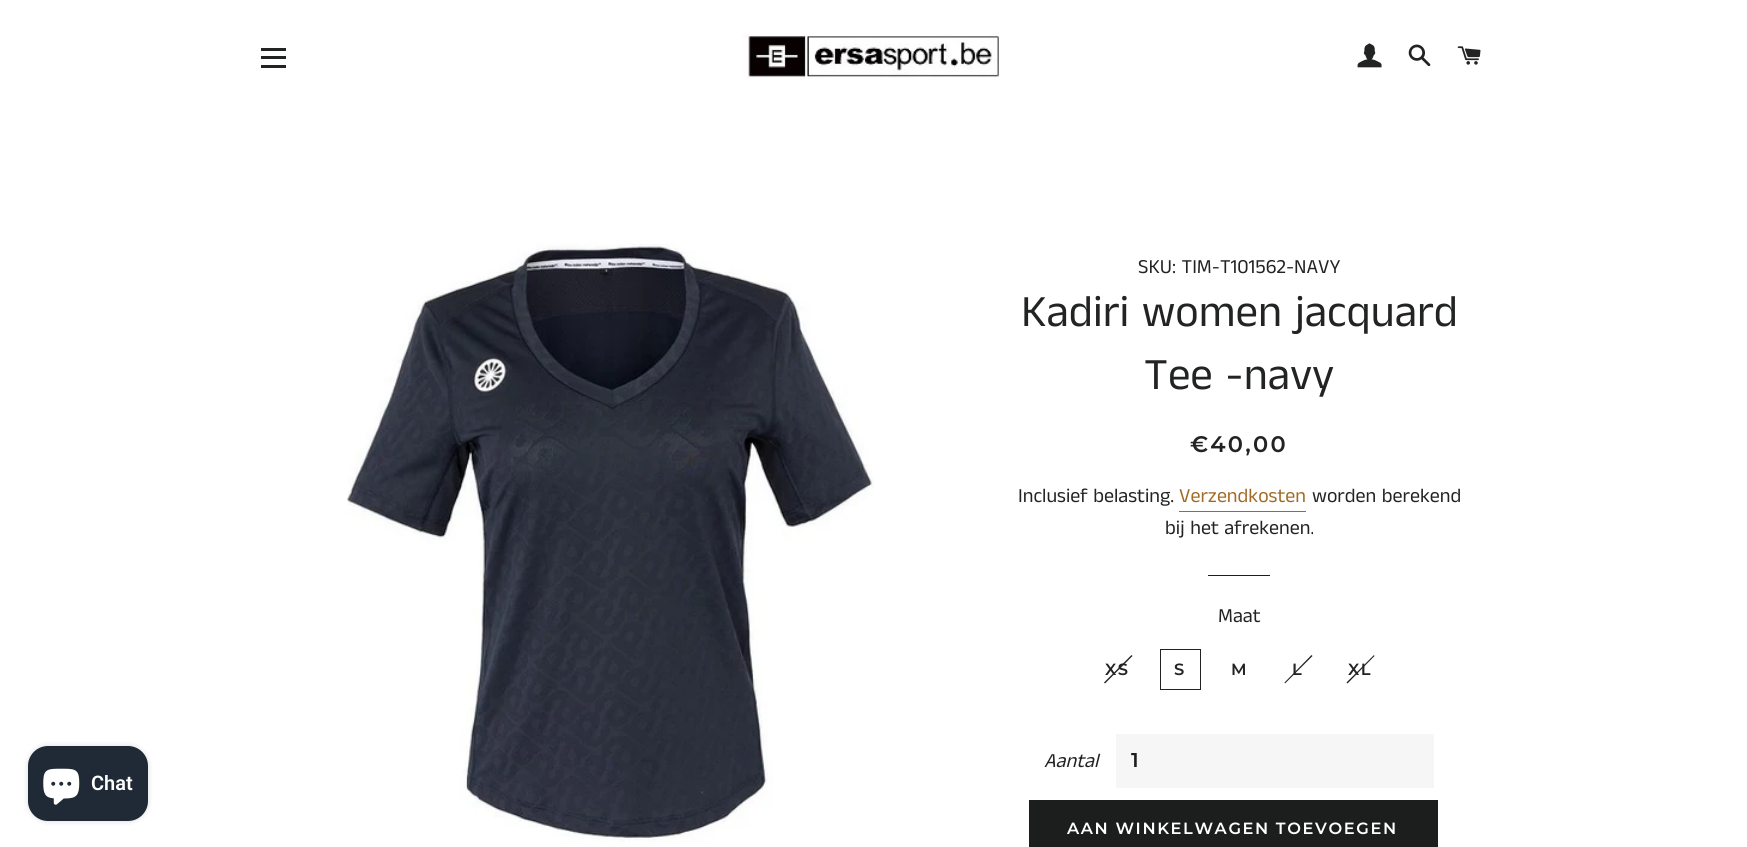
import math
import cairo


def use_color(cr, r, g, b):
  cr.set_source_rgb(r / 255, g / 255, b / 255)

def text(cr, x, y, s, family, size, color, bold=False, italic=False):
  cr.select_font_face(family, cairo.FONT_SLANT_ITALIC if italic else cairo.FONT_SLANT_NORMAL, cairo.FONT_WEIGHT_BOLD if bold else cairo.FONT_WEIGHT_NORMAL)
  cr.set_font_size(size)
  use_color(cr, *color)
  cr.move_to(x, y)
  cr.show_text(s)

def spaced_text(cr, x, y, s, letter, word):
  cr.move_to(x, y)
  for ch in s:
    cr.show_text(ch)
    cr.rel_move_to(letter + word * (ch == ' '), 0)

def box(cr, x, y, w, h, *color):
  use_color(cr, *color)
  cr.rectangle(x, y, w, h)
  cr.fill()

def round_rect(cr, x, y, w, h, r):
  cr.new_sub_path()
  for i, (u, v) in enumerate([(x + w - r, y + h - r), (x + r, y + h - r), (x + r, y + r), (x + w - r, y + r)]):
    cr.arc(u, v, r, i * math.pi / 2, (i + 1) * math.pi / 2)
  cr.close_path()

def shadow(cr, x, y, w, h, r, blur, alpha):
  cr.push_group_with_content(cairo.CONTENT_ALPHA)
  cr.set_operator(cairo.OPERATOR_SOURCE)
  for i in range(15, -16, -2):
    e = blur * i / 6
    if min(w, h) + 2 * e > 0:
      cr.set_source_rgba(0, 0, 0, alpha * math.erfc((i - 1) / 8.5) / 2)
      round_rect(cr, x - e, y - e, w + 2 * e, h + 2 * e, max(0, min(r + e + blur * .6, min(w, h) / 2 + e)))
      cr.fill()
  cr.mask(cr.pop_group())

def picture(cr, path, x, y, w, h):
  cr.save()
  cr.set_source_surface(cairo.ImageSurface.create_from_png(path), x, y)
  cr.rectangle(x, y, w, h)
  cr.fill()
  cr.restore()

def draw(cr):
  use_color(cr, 255, 255, 255)
  cr.paint()
  box(cr, 261, 48, 25, 3, 34, 35, 35)
  box(cr, 261, 56, 25, 3, 34, 35, 35)
  box(cr, 261, 65, 25, 3, 34, 35, 35)
  picture(cr, "img_01.png", 742, 34, 258, 45)
  picture(cr, "img_02.png", 1357, 43, 25, 25)
  picture(cr, "img_03.png", 1408, 44, 23, 23)
  picture(cr, "img_04.png", 1457, 46, 24, 19)
  use_color(cr, 0, 0, 0)
  shadow(cr, 28, 746, 120, 75, 20, 3, 0.15)
  use_color(cr, 32, 42, 54)
  round_rect(cr, 28, 746, 120, 75, 20)
  cr.fill()
  picture(cr, "img_05.png", 43, 768, 37, 37)
  picture(cr, "img_06.png", 347, 243, 527, 599)
  box(cr, 1179, 511, 127, 1, 162, 107, 37)
  box(cr, 1208, 575, 62, 1, 28, 29, 29)
  use_color(cr, 34, 35, 35)
  cr.new_path()
  cr.move_to(1131.5, 655)
  cr.line_to(1132.5, 656)
  cr.line_to(1105, 683.5)
  cr.line_to(1104, 682.5)
  cr.close_path()
  cr.fill()
  cr.rectangle(1160.5, 649.5, 40, 40)
  cr.set_line_width(1)
  cr.stroke()
  cr.new_path()
  cr.move_to(1311.5, 655)
  cr.line_to(1312.5, 656)
  cr.line_to(1285, 683.5)
  cr.line_to(1284.5, 682.5)
  cr.close_path()
  cr.fill()
  cr.new_path()
  cr.move_to(1374, 655)
  cr.line_to(1374.5, 656)
  cr.line_to(1347.5, 683.5)
  cr.line_to(1346.5, 682.5)
  cr.close_path()
  cr.fill()
  box(cr, 1116, 734, 318, 54, 246, 246, 246)
  box(cr, 1029, 800, 409, 47, 28, 29, 29)
  text(cr, 91, 790, "Chat", "Roboto SemiBold", 20, (255, 255, 255))
  text(cr, 1138, 273, "SKU: TIM-T101562-NAVY", "Anek Tamil", 20, (34, 35, 35))
  text(cr, 1021, 326, "Kadiri women jacquard", "Anek Tamil", 45, (34, 35, 35))
  text(cr, 1144, 389, "Tee -navy", "Anek Tamil", 45, (34, 35, 35))
  cr.select_font_face("Montserrat SemiBold")
  cr.set_font_size(22.5)
  spaced_text(cr, 1190, 452, "€40,00", 2.25, 0)
  text(cr, 1018, 502, "Inclusief belasting.", "Anek Tamil", 20, (34, 35, 35))
  text(cr, 1179, 502, "Verzendkosten", "Anek Tamil", 20, (162, 107, 37))
  text(cr, 1312, 502, "worden berekend", "Anek Tamil", 20, (34, 35, 35))
  text(cr, 1165, 534, "bij het afrekenen.", "Anek Tamil", 20, (34, 35, 35))
  text(cr, 1218, 622, "Maat", "Anek Tamil", 20, (34, 35, 35))
  cr.select_font_face("Montserrat SemiBold")
  cr.set_font_size(16.25)
  spaced_text(cr, 1105, 675, "XS", 1.6, 0)
  spaced_text(cr, 1174, 675, "S", 1.6, 0)
  spaced_text(cr, 1231, 675, "M", 1.6, 0)
  spaced_text(cr, 1292, 675, "L", 1.6, 0)
  spaced_text(cr, 1348, 675, "XL", 1.6, 0)
  text(cr, 1044, 767, "Aantal", "Anek Tamil", 20, (34, 35, 35), italic=True)
  cr.select_font_face("Montserrat SemiBold")
  use_color(cr, 28, 29, 29)
  spaced_text(cr, 1131, 767, "1", 2, 0)
  cr.set_font_size(16.25)
  use_color(cr, 255, 255, 255)
  spaced_text(cr, 1067, 834, "AAN WINKELWAGEN TOEVOEGEN", 1.6, 0)


surface = cairo.ImageSurface(cairo.FORMAT_RGB24, 1747, 847)
cr = cairo.Context(surface)
options = cairo.FontOptions()
options.set_hint_metrics(cairo.HINT_METRICS_OFF)
options.set_hint_style(cairo.HINT_STYLE_NONE)
cr.set_font_options(options)
cr.set_miter_limit(4)
draw(cr)
surface.write_to_png("out.png")
